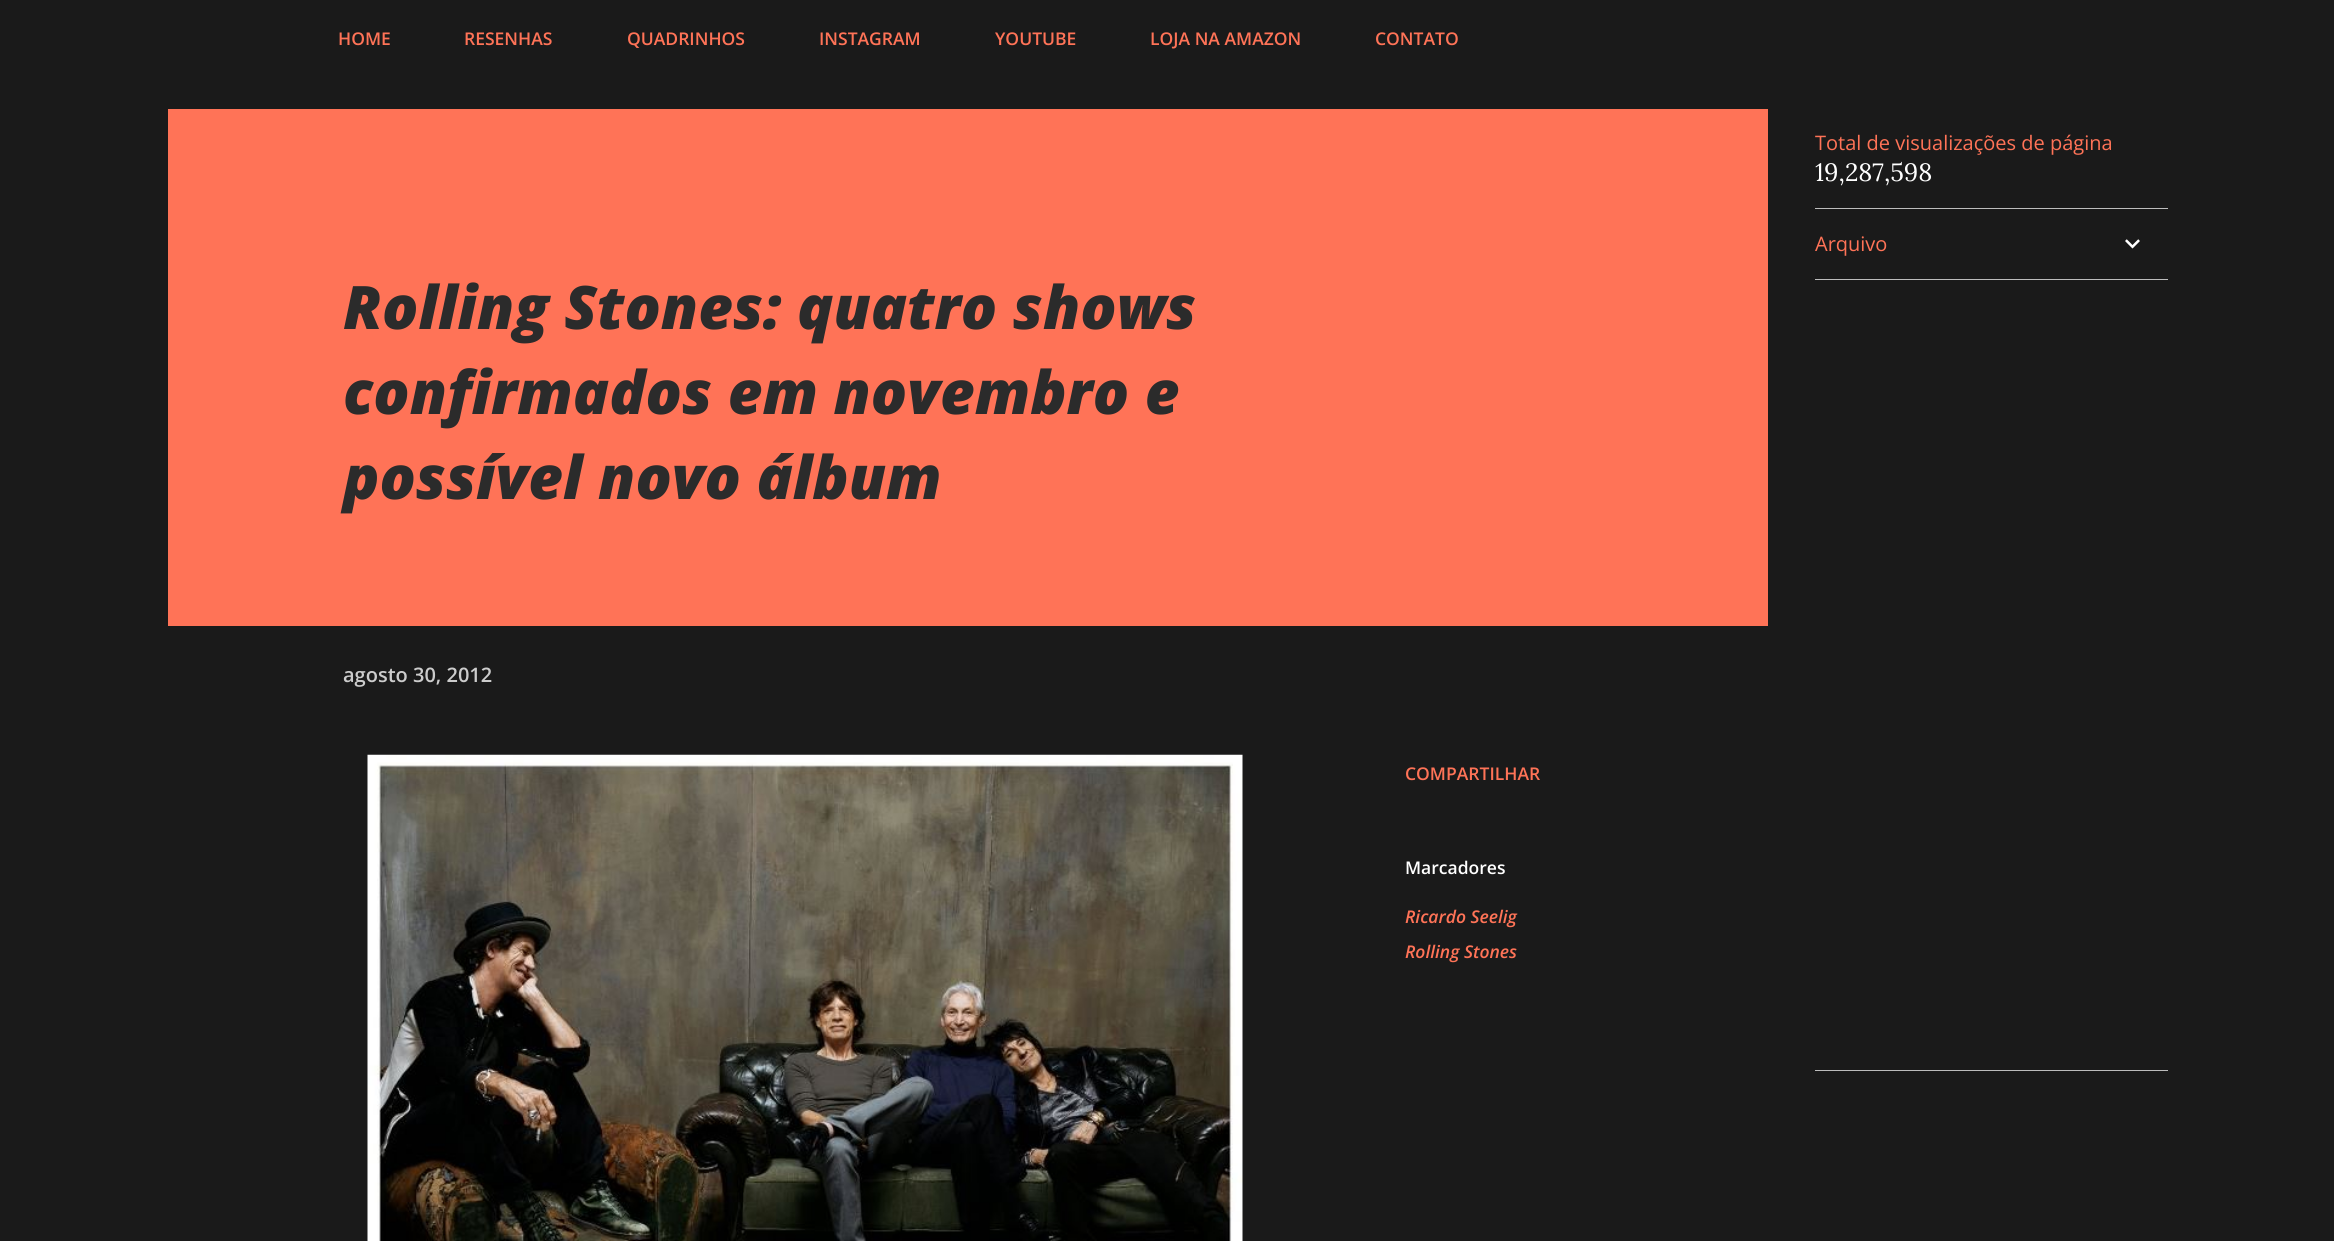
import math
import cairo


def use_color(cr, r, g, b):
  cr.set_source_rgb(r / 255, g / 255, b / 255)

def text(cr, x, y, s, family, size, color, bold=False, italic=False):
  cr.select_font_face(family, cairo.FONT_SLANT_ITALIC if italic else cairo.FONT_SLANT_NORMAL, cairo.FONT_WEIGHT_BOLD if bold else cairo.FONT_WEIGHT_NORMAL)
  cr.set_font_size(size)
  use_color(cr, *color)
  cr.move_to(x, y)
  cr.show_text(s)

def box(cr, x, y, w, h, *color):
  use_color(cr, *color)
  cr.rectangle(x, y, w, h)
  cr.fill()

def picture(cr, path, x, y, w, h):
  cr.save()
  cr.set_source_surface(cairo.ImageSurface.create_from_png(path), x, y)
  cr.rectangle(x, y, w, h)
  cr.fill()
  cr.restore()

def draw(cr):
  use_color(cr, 26, 26, 26)
  cr.paint()
  box(cr, 1815, 208, 353, 1, 189, 189, 189)
  picture(cr, "img_01.png", 2125, 239, 15, 10)
  box(cr, 1815, 279, 353, 1, 189, 189, 189)
  box(cr, 1815, 1070, 353, 1, 189, 189, 189)
  box(cr, 168, 109, 1600, 517, 255, 115, 87)
  picture(cr, "img_02.png", 367, 754, 876, 487)
  text(cr, 338, 45, "HOME", "Open Sans SemiBold", 17.5, (255, 115, 87))
  text(cr, 464, 45, "RESENHAS", "Open Sans SemiBold", 17.5, (255, 115, 87))
  text(cr, 627, 45, "QUADRINHOS", "Open Sans SemiBold", 17.5, (255, 115, 87))
  text(cr, 819, 45, "INSTAGRAM", "Open Sans SemiBold", 17.5, (255, 115, 87))
  text(cr, 995, 45, "YOUTUBE", "Open Sans SemiBold", 17.5, (255, 115, 87))
  text(cr, 1150, 45, "LOJA NA AMAZON", "Open Sans SemiBold", 17.5, (255, 115, 87))
  text(cr, 1375, 45, "CONTATO", "Open Sans SemiBold", 17.5, (255, 115, 87))
  text(cr, 1815, 150, "Total de visualizações de página", "Open Sans", 20, (255, 115, 87))
  text(cr, 1815, 181, "19,287,598", "Lora", 25, (255, 255, 255))
  text(cr, 1815, 251, "Arquivo", "Open Sans", 20, (255, 115, 87))
  text(cr, 343, 329, "Rolling Stones: quatro shows", "Open Sans ExtraBold", 60, (43, 43, 43), italic=True)
  text(cr, 343, 414, "confirmados em novembro e", "Open Sans ExtraBold", 60, (43, 43, 43), italic=True)
  text(cr, 343, 499, "possível novo álbum", "Open Sans ExtraBold", 60, (43, 43, 43), italic=True)
  text(cr, 343, 682, "agosto 30, 2012", "Open Sans SemiBold", 20, (204, 204, 204))
  text(cr, 1405, 780, "COMPARTILHAR", "Open Sans SemiBold", 17.5, (255, 115, 87))
  text(cr, 1405, 874, "Marcadores", "Open Sans SemiBold", 17.5, (255, 255, 255))
  text(cr, 1405, 923, "Ricardo Seelig", "Open Sans SemiBold", 17.5, (255, 115, 87), italic=True)
  text(cr, 1405, 958, "Rolling Stones", "Open Sans SemiBold", 17.5, (255, 115, 87), italic=True)


surface = cairo.ImageSurface(cairo.FORMAT_RGB24, 2334, 1241)
cr = cairo.Context(surface)
options = cairo.FontOptions()
options.set_hint_metrics(cairo.HINT_METRICS_OFF)
options.set_hint_style(cairo.HINT_STYLE_NONE)
cr.set_font_options(options)
cr.set_miter_limit(4)
draw(cr)
surface.write_to_png("out.png")
